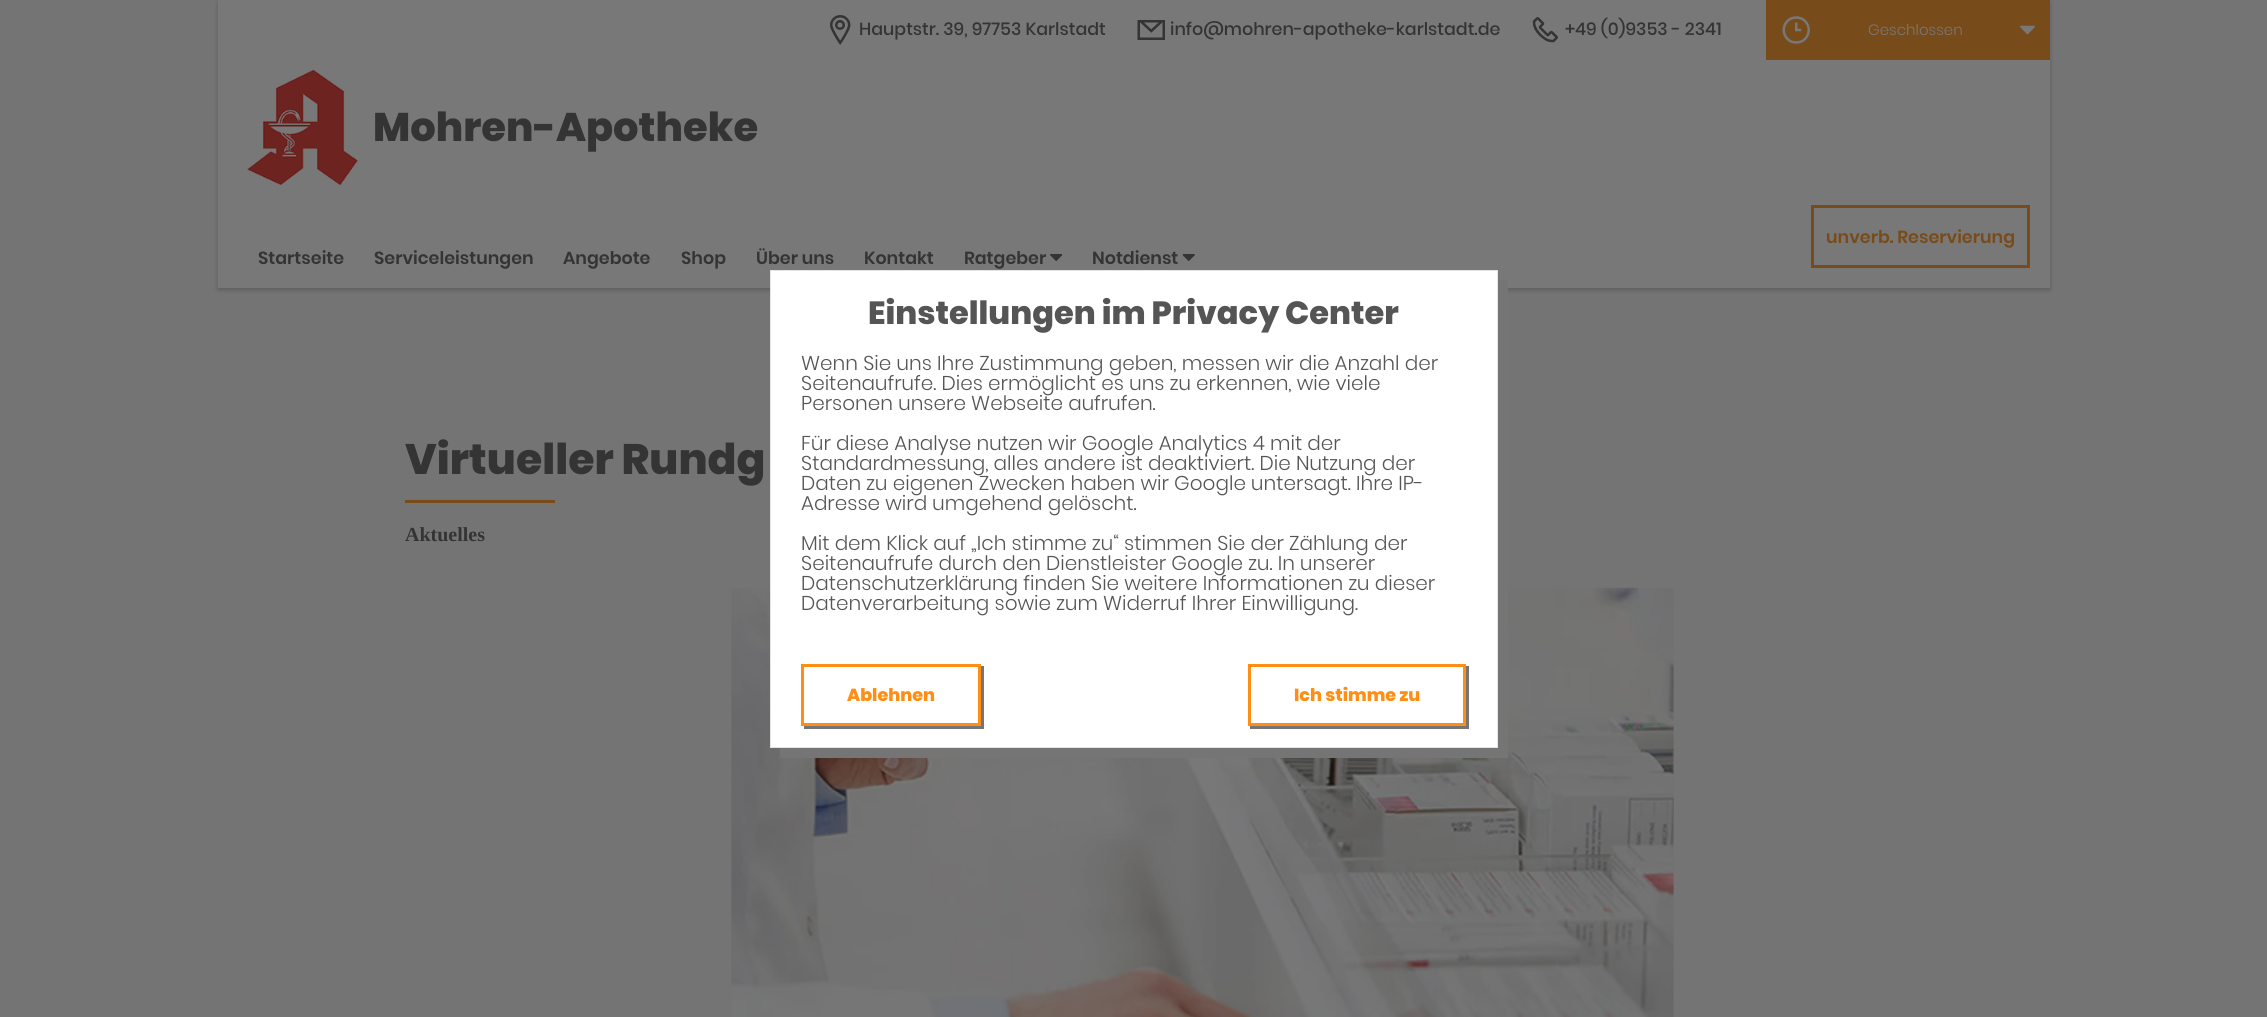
import math
import cairo


def use_color(cr, r, g, b):
  cr.set_source_rgb(r / 255, g / 255, b / 255)

def text(cr, x, y, s, family, size, color, bold=False, italic=False):
  cr.select_font_face(family, cairo.FONT_SLANT_ITALIC if italic else cairo.FONT_SLANT_NORMAL, cairo.FONT_WEIGHT_BOLD if bold else cairo.FONT_WEIGHT_NORMAL)
  cr.set_font_size(size)
  use_color(cr, *color)
  cr.move_to(x, y)
  cr.show_text(s)

def box(cr, x, y, w, h, *color):
  use_color(cr, *color)
  cr.rectangle(x, y, w, h)
  cr.fill()

def round_rect(cr, x, y, w, h, r):
  cr.new_sub_path()
  for i, (u, v) in enumerate([(x + w - r, y + h - r), (x + r, y + h - r), (x + r, y + r), (x + w - r, y + r)]):
    cr.arc(u, v, r, i * math.pi / 2, (i + 1) * math.pi / 2)
  cr.close_path()

def shadow(cr, x, y, w, h, r, blur, alpha):
  cr.push_group_with_content(cairo.CONTENT_ALPHA)
  cr.set_operator(cairo.OPERATOR_SOURCE)
  for i in range(15, -16, -2):
    e = blur * i / 6
    if min(w, h) + 2 * e > 0:
      cr.set_source_rgba(0, 0, 0, alpha * math.erfc((i - 1) / 8.5) / 2)
      round_rect(cr, x - e, y - e, w + 2 * e, h + 2 * e, max(0, min(r + e + blur * .6, min(w, h) / 2 + e)))
      cr.fill()
  cr.mask(cr.pop_group())

def picture(cr, path, x, y, w, h):
  cr.save()
  cr.set_source_surface(cairo.ImageSurface.create_from_png(path), x, y)
  cr.rectangle(x, y, w, h)
  cr.fill()
  cr.restore()

def draw(cr):
  use_color(cr, 116, 116, 116)
  cr.paint()
  use_color(cr, 18, 18, 18)
  shadow(cr, 218, 3, 1832, 287, 0, 2.5, 0.24)
  box(cr, 218, 0, 1832, 288, 120, 120, 120)
  picture(cr, "img_01.png", 830, 15, 21, 30)
  picture(cr, "img_02.png", 1137, 20, 28, 20)
  picture(cr, "img_03.png", 1532, 17, 26, 26)
  box(cr, 1766, 0, 284, 60, 120, 75, 26)
  picture(cr, "img_04.png", 1782, 16, 28, 28)
  picture(cr, "img_05.png", 2020, 25, 15, 10)
  picture(cr, "img_06.png", 247, 70, 111, 115)
  cr.rectangle(1812.5, 206.5, 216, 60)
  cr.set_line_width(3)
  cr.stroke()
  picture(cr, "img_07.png", 1050, 254, 13, 7)
  picture(cr, "img_08.png", 1182, 254, 13, 7)
  picture(cr, "img_09.png", 731, 587, 943, 430)
  use_color(cr, 117, 117, 117)
  cr.new_path()
  cr.move_to(780, 748)
  cr.line_to(780, 758)
  cr.line_to(1508, 758)
  cr.line_to(1508, 280)
  cr.line_to(1498, 280)
  cr.line_to(1498, 748)
  cr.close_path()
  cr.fill()
  use_color(cr, 255, 255, 255)
  cr.rectangle(770.5, 270.5, 727, 477)
  cr.fill_preserve()
  use_color(cr, 228, 228, 228)
  cr.set_line_width(1)
  cr.stroke()
  use_color(cr, 117, 117, 117)
  cr.new_path()
  cr.move_to(804, 726)
  cr.line_to(804, 729)
  cr.line_to(984, 729)
  cr.line_to(984, 666)
  cr.line_to(981, 666)
  cr.line_to(981, 726)
  cr.close_path()
  cr.fill()
  cr.rectangle(802.5, 665.5, 177, 59)
  use_color(cr, 255, 142, 20)
  cr.set_line_width(3)
  cr.stroke()
  use_color(cr, 117, 117, 117)
  cr.new_path()
  cr.move_to(1250, 726)
  cr.line_to(1250, 729)
  cr.line_to(1469, 729)
  cr.line_to(1469, 666)
  cr.line_to(1466, 666)
  cr.line_to(1466, 726)
  cr.close_path()
  cr.fill()
  cr.rectangle(1249.5, 665.5, 215, 59)
  use_color(cr, 255, 142, 20)
  cr.stroke()
  box(cr, 405, 500, 150, 3, 120, 75, 26)
  text(cr, 859, 35, "Hauptstr. 39, 97753 Karlstadt", "Poppins Medium", 17.5, (52, 52, 52))
  text(cr, 1170, 35, "info@mohren-apotheke-karlstadt.de", "Poppins Medium", 17.5, (52, 52, 52))
  text(cr, 1565, 35, "+49 (0)9353 - 2341", "Poppins Medium", 17.5, (52, 52, 52))
  text(cr, 1868, 35, "Geschlossen", "Poppins Light", 15, (120, 120, 120))
  text(cr, 373, 141, "Mohren-Apotheke", "Poppins ExtraBold", 40, (52, 52, 52))
  text(cr, 1826, 243, "unverb. Reservierung", "Poppins SemiBold", 17.5, (120, 75, 26))
  text(cr, 258, 264, "Startseite", "Poppins SemiBold", 17.5, (52, 52, 52))
  text(cr, 374, 264, "Serviceleistungen", "Poppins SemiBold", 17.5, (52, 52, 52))
  text(cr, 563, 264, "Angebote", "Poppins SemiBold", 17.5, (52, 52, 52))
  text(cr, 681, 264, "Shop", "Poppins SemiBold", 17.5, (52, 52, 52))
  text(cr, 756, 264, "Über uns", "Poppins SemiBold", 17.5, (52, 52, 52))
  text(cr, 864, 264, "Kontakt", "Poppins SemiBold", 17.5, (52, 52, 52))
  text(cr, 964, 264, "Ratgeber", "Poppins SemiBold", 17.5, (52, 52, 52))
  text(cr, 1092, 264, "Notdienst", "Poppins SemiBold", 17.5, (52, 52, 52))
  text(cr, 868, 324, "Einstellungen im Privacy Center", "Poppins ExtraBold", 32, (85, 85, 85))
  text(cr, 801, 370, "Wenn Sie uns Ihre Zustimmung geben, messen wir die Anzahl der", "Poppins Light", 20, (85, 85, 85))
  text(cr, 801, 390, "Seitenaufrufe. Dies ermöglicht es uns zu erkennen, wie viele", "Poppins Light", 20, (85, 85, 85))
  text(cr, 801, 410, "Personen unsere Webseite aufrufen.", "Poppins Light", 20, (85, 85, 85))
  text(cr, 801, 450, "Für diese Analyse nutzen wir Google Analytics 4 mit der", "Poppins Light", 20, (85, 85, 85))
  text(cr, 801, 470, "Standardmessung, alles andere ist deaktiviert. Die Nutzung der", "Poppins Light", 20, (85, 85, 85))
  text(cr, 801, 490, "Daten zu eigenen Zwecken haben wir Google untersagt. Ihre IP-", "Poppins Light", 20, (85, 85, 85))
  text(cr, 801, 510, "Adresse wird umgehend gelöscht.", "Poppins Light", 20, (85, 85, 85))
  text(cr, 801, 550, "Mit dem Klick auf „Ich stimme zu“ stimmen Sie der Zählung der", "Poppins Light", 20, (85, 85, 85))
  text(cr, 801, 570, "Seitenaufrufe durch den Dienstleister Google zu. In unserer", "Poppins Light", 20, (85, 85, 85))
  text(cr, 801, 590, "Datenschutzerklärung finden Sie weitere Informationen zu dieser", "Poppins Light", 20, (85, 85, 85))
  text(cr, 801, 610, "Datenverarbeitung sowie zum Widerruf Ihrer Einwilligung.", "Poppins Light", 20, (85, 85, 85))
  text(cr, 847, 701, "Ablehnen", "Poppins ExtraBold", 17.5, (255, 142, 20))
  text(cr, 1294, 701, "Ich stimme zu", "Poppins ExtraBold", 17.5, (255, 142, 20))
  text(cr, 405, 474, "Virtueller Rundg", "Poppins ExtraBold", 42.5, (52, 52, 52))
  text(cr, 405, 541, "Aktuelles", "Liberation Serif", 20, (52, 52, 52), bold=True)


surface = cairo.ImageSurface(cairo.FORMAT_RGB24, 2267, 1017)
cr = cairo.Context(surface)
options = cairo.FontOptions()
options.set_hint_metrics(cairo.HINT_METRICS_OFF)
options.set_hint_style(cairo.HINT_STYLE_NONE)
cr.set_font_options(options)
cr.set_miter_limit(4)
draw(cr)
surface.write_to_png("out.png")
